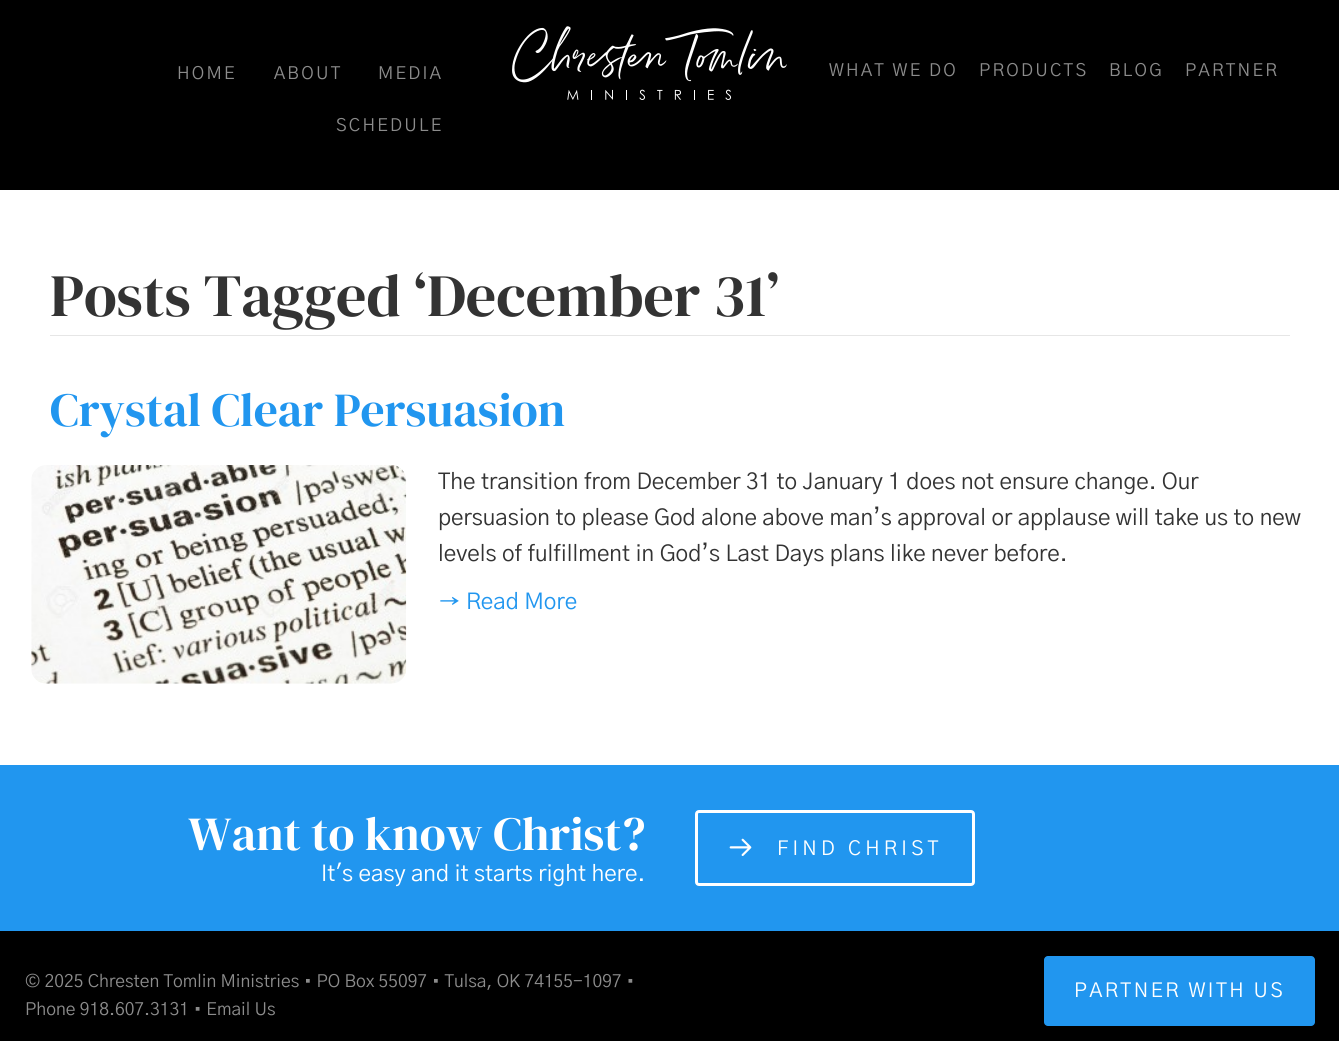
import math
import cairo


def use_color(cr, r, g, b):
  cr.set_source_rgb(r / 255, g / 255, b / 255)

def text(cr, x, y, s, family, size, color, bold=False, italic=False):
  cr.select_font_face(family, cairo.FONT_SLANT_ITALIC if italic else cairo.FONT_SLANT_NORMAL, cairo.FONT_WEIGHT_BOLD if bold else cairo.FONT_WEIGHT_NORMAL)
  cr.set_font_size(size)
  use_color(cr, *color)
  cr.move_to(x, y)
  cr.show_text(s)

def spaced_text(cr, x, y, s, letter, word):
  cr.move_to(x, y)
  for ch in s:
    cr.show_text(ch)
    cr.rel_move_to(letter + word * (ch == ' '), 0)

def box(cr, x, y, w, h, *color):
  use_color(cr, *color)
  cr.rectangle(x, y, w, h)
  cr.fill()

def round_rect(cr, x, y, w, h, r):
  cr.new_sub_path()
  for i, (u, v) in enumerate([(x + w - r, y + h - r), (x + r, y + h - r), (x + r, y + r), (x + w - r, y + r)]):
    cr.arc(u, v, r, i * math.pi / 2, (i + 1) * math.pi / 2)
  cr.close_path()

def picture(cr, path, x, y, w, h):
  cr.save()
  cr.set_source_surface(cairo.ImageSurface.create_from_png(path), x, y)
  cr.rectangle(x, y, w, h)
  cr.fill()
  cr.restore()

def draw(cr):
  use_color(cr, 255, 255, 255)
  cr.paint()
  box(cr, 0, 0, 1339, 190, 0, 0, 0)
  picture(cr, "img_01.png", 512, 26, 275, 74)
  box(cr, 50, 335, 1240, 1, 230, 230, 230)
  picture(cr, "img_02.png", 31, 465, 376, 219)
  box(cr, 0, 765, 1339, 166, 33, 150, 239)
  round_rect(cr, 696.5, 811.5, 277, 73, 2.5)
  use_color(cr, 255, 255, 255)
  cr.set_line_width(3)
  cr.stroke()
  picture(cr, "img_03.png", 729, 838, 23, 18)
  box(cr, 0, 931, 1339, 110, 0, 0, 0)
  use_color(cr, 33, 150, 239)
  round_rect(cr, 1044, 956, 271, 70, 4)
  cr.fill()
  cr.select_font_face("Gothic A1")
  cr.set_font_size(17.5)
  use_color(cr, 140, 140, 140)
  spaced_text(cr, 177, 79, "HOME", 2.25, 0)
  spaced_text(cr, 274, 79, "ABOUT", 2.25, 0)
  spaced_text(cr, 378, 79, "MEDIA", 2.25, 0)
  spaced_text(cr, 336, 131, "SCHEDULE", 2.25, 0)
  spaced_text(cr, 829, 76, "WHAT WE DO", 2.25, 0)
  spaced_text(cr, 979, 76, "PRODUCTS", 2.25, 0)
  spaced_text(cr, 1109, 76, "BLOG", 2.25, 0)
  spaced_text(cr, 1185, 76, "PARTNER", 2.25, 0)
  text(cr, 50, 316, "Posts Tagged ‘December 31’", "DM Serif Display", 60, (51, 51, 51))
  text(cr, 50, 426, "Crystal Clear Persuasion", "DM Serif Display", 47.5, (33, 150, 239))
  text(cr, 438, 489, "The transition from December 31 to January 1 does not ensure change. Our", "Gothic A1", 22.5, (51, 51, 51))
  text(cr, 438, 525, "persuasion to please God alone above man’s approval or applause will take us to new", "Gothic A1", 22.5, (51, 51, 51))
  text(cr, 438, 561, "levels of fulfillment in God’s Last Days plans like never before.", "Gothic A1", 22.5, (51, 51, 51))
  text(cr, 438, 609, "→ Read More", "Gothic A1", 22.5, (33, 150, 239))
  text(cr, 188, 850, "Want to know Christ?", "DM Serif Display", 47.5, (255, 255, 255))
  text(cr, 321, 881, "It's easy and it starts right here.", "Gothic A1", 22.5, (255, 255, 255))
  cr.set_font_size(20)
  spaced_text(cr, 777, 855, "FIND CHRIST", 4.25, 0)
  text(cr, 25, 987, "© 2025 Chresten Tomlin Ministries • PO Box 55097 • Tulsa, OK 74155-1097 •", "Gothic A1", 17.5, (140, 140, 140))
  text(cr, 25, 1015, "Phone 918.607.3131 • Email Us", "Gothic A1", 17.5, (140, 140, 140))
  cr.set_font_size(20)
  use_color(cr, 255, 255, 255)
  spaced_text(cr, 1074, 997, "PARTNER WITH US", 2.5, 0)


surface = cairo.ImageSurface(cairo.FORMAT_RGB24, 1339, 1041)
cr = cairo.Context(surface)
options = cairo.FontOptions()
options.set_hint_metrics(cairo.HINT_METRICS_OFF)
options.set_hint_style(cairo.HINT_STYLE_NONE)
cr.set_font_options(options)
cr.set_miter_limit(4)
draw(cr)
surface.write_to_png("out.png")
